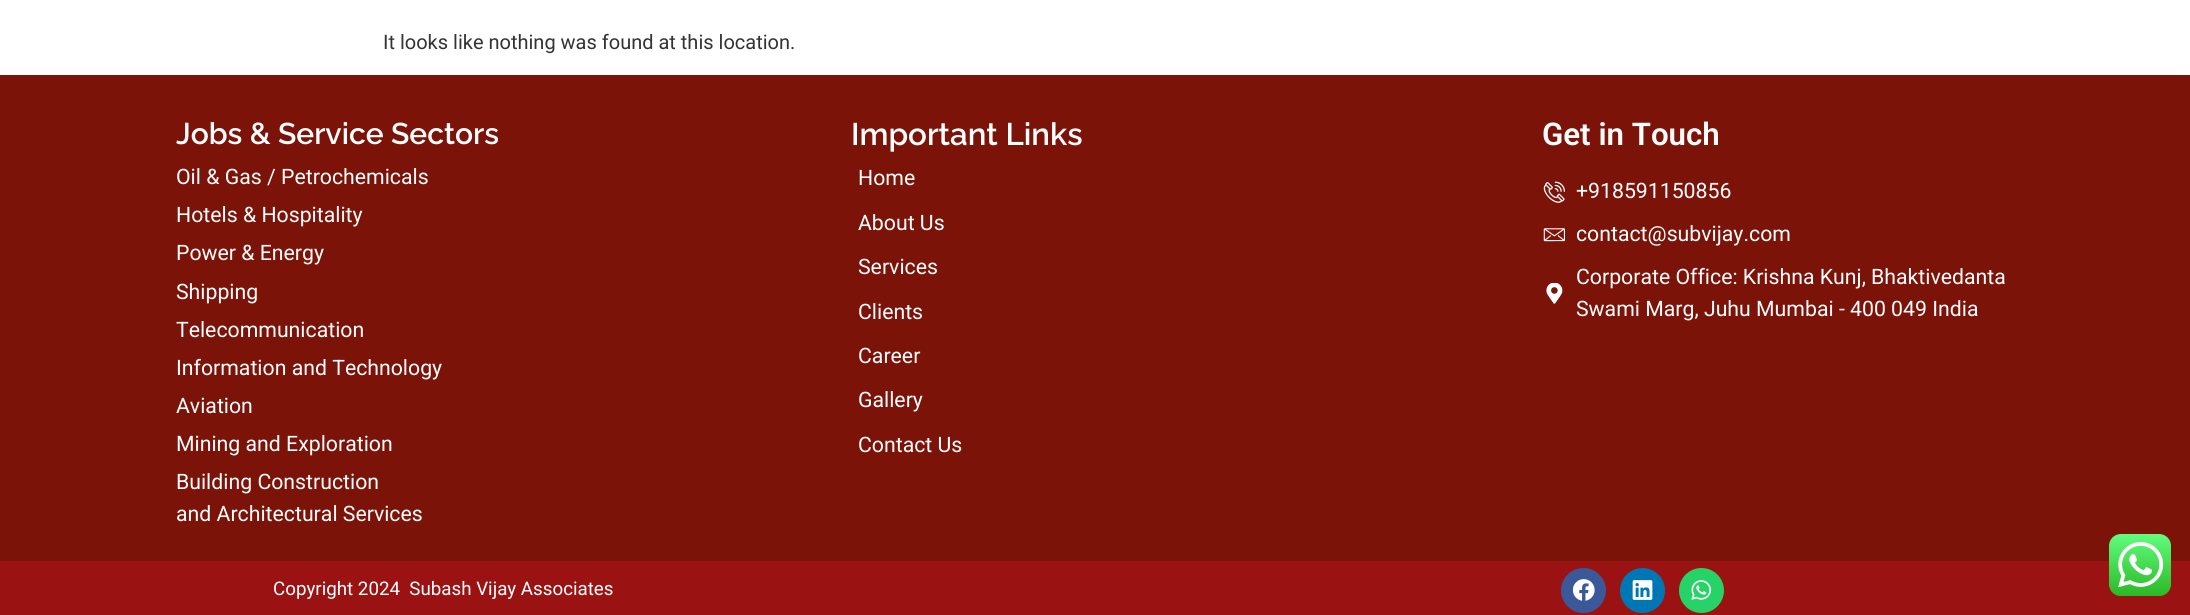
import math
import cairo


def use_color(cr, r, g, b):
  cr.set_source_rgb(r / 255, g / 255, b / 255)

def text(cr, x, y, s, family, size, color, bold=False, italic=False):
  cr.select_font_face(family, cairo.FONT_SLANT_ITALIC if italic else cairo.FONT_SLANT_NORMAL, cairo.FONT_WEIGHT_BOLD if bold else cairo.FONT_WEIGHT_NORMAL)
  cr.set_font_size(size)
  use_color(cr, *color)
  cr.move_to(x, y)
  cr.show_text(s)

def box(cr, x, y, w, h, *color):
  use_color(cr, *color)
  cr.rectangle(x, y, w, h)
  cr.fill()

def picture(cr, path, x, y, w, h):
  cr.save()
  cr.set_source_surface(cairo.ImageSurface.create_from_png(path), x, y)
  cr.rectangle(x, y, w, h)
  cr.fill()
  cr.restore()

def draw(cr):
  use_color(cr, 255, 255, 255)
  cr.paint()
  box(cr, 0, 75, 2190, 486, 124, 19, 8)
  picture(cr, "img_01.png", 1543, 181, 22, 22)
  picture(cr, "img_02.png", 1543, 228, 22, 14)
  picture(cr, "img_03.png", 1546, 283, 17, 21)
  box(cr, 0, 561, 2190, 54, 155, 18, 18)
  use_color(cr, 59, 89, 152)
  cr.arc(1583.5, 590.5, 22.5, 0, 2 * math.pi)
  cr.fill()
  picture(cr, "img_04.png", 1573, 579, 22, 22)
  use_color(cr, 0, 119, 181)
  cr.arc(1642.5, 590.5, 22.5, 0, 2 * math.pi)
  cr.fill()
  picture(cr, "img_05.png", 1632, 580, 21, 20)
  use_color(cr, 37, 211, 102)
  cr.arc(1701.5, 590.5, 22.5, 0, 2 * math.pi)
  cr.fill()
  picture(cr, "img_06.png", 1691, 580, 21, 20)
  picture(cr, "img_07.png", 2109, 534, 62, 62)
  text(cr, 383, 49, "It looks like nothing was found at this location.", "Roboto", 20, (51, 51, 51))
  text(cr, 176, 144, "Jobs & Service Sectors", "Raleway SemiBold", 30, (255, 255, 255))
  text(cr, 176, 184, "Oil & Gas / Petrochemicals", "Roboto", 21.25, (255, 255, 255))
  text(cr, 176, 222, "Hotels & Hospitality", "Roboto", 21.25, (255, 255, 255))
  text(cr, 176, 260, "Power & Energy", "Roboto", 21.25, (255, 255, 255))
  text(cr, 176, 299, "Shipping", "Roboto", 21.25, (255, 255, 255))
  text(cr, 176, 337, "Telecommunication", "Roboto", 21.25, (255, 255, 255))
  text(cr, 176, 375, "Information and Technology", "Roboto", 21.25, (255, 255, 255))
  text(cr, 176, 413, "Aviation", "Roboto", 21.25, (255, 255, 255))
  text(cr, 176, 451, "Mining and Exploration", "Roboto", 21.25, (255, 255, 255))
  text(cr, 176, 489, "Building Construction", "Roboto", 21.25, (255, 255, 255))
  text(cr, 176, 521, "and Architectural Services", "Roboto", 21.25, (255, 255, 255))
  text(cr, 851, 145, "Important Links", "Raleway SemiBold", 31.25, (255, 255, 255))
  text(cr, 858, 185, "Home", "Roboto", 21.25, (255, 255, 255))
  text(cr, 858, 230, "About Us", "Roboto", 21.25, (255, 255, 255))
  text(cr, 858, 274, "Services", "Roboto", 21.25, (255, 255, 255))
  text(cr, 858, 319, "Clients", "Roboto", 21.25, (255, 255, 255))
  text(cr, 858, 363, "Career", "Roboto", 21.25, (255, 255, 255))
  text(cr, 858, 407, "Gallery", "Roboto", 21.25, (255, 255, 255))
  text(cr, 858, 452, "Contact Us", "Roboto", 21.25, (255, 255, 255))
  text(cr, 1542, 145, "Get in Touch", "Roboto SemiBold", 31.25, (255, 255, 255))
  text(cr, 1576, 198, "+918591150856", "Roboto", 21.25, (255, 255, 255))
  text(cr, 1576, 241, "contact@subvijay.com", "Roboto", 21.25, (255, 255, 255))
  text(cr, 1576, 284, "Corporate Office: Krishna Kunj, Bhaktivedanta", "Roboto", 21.25, (255, 255, 255))
  text(cr, 1576, 316, "Swami Marg, Juhu Mumbai - 400 049 India", "Roboto", 21.25, (255, 255, 255))
  text(cr, 273, 595, "Copyright 2024  Subash Vijay Associates", "Roboto", 18.75, (255, 255, 255))


surface = cairo.ImageSurface(cairo.FORMAT_RGB24, 2190, 615)
cr = cairo.Context(surface)
options = cairo.FontOptions()
options.set_hint_metrics(cairo.HINT_METRICS_OFF)
options.set_hint_style(cairo.HINT_STYLE_NONE)
cr.set_font_options(options)
cr.set_miter_limit(4)
draw(cr)
surface.write_to_png("out.png")
